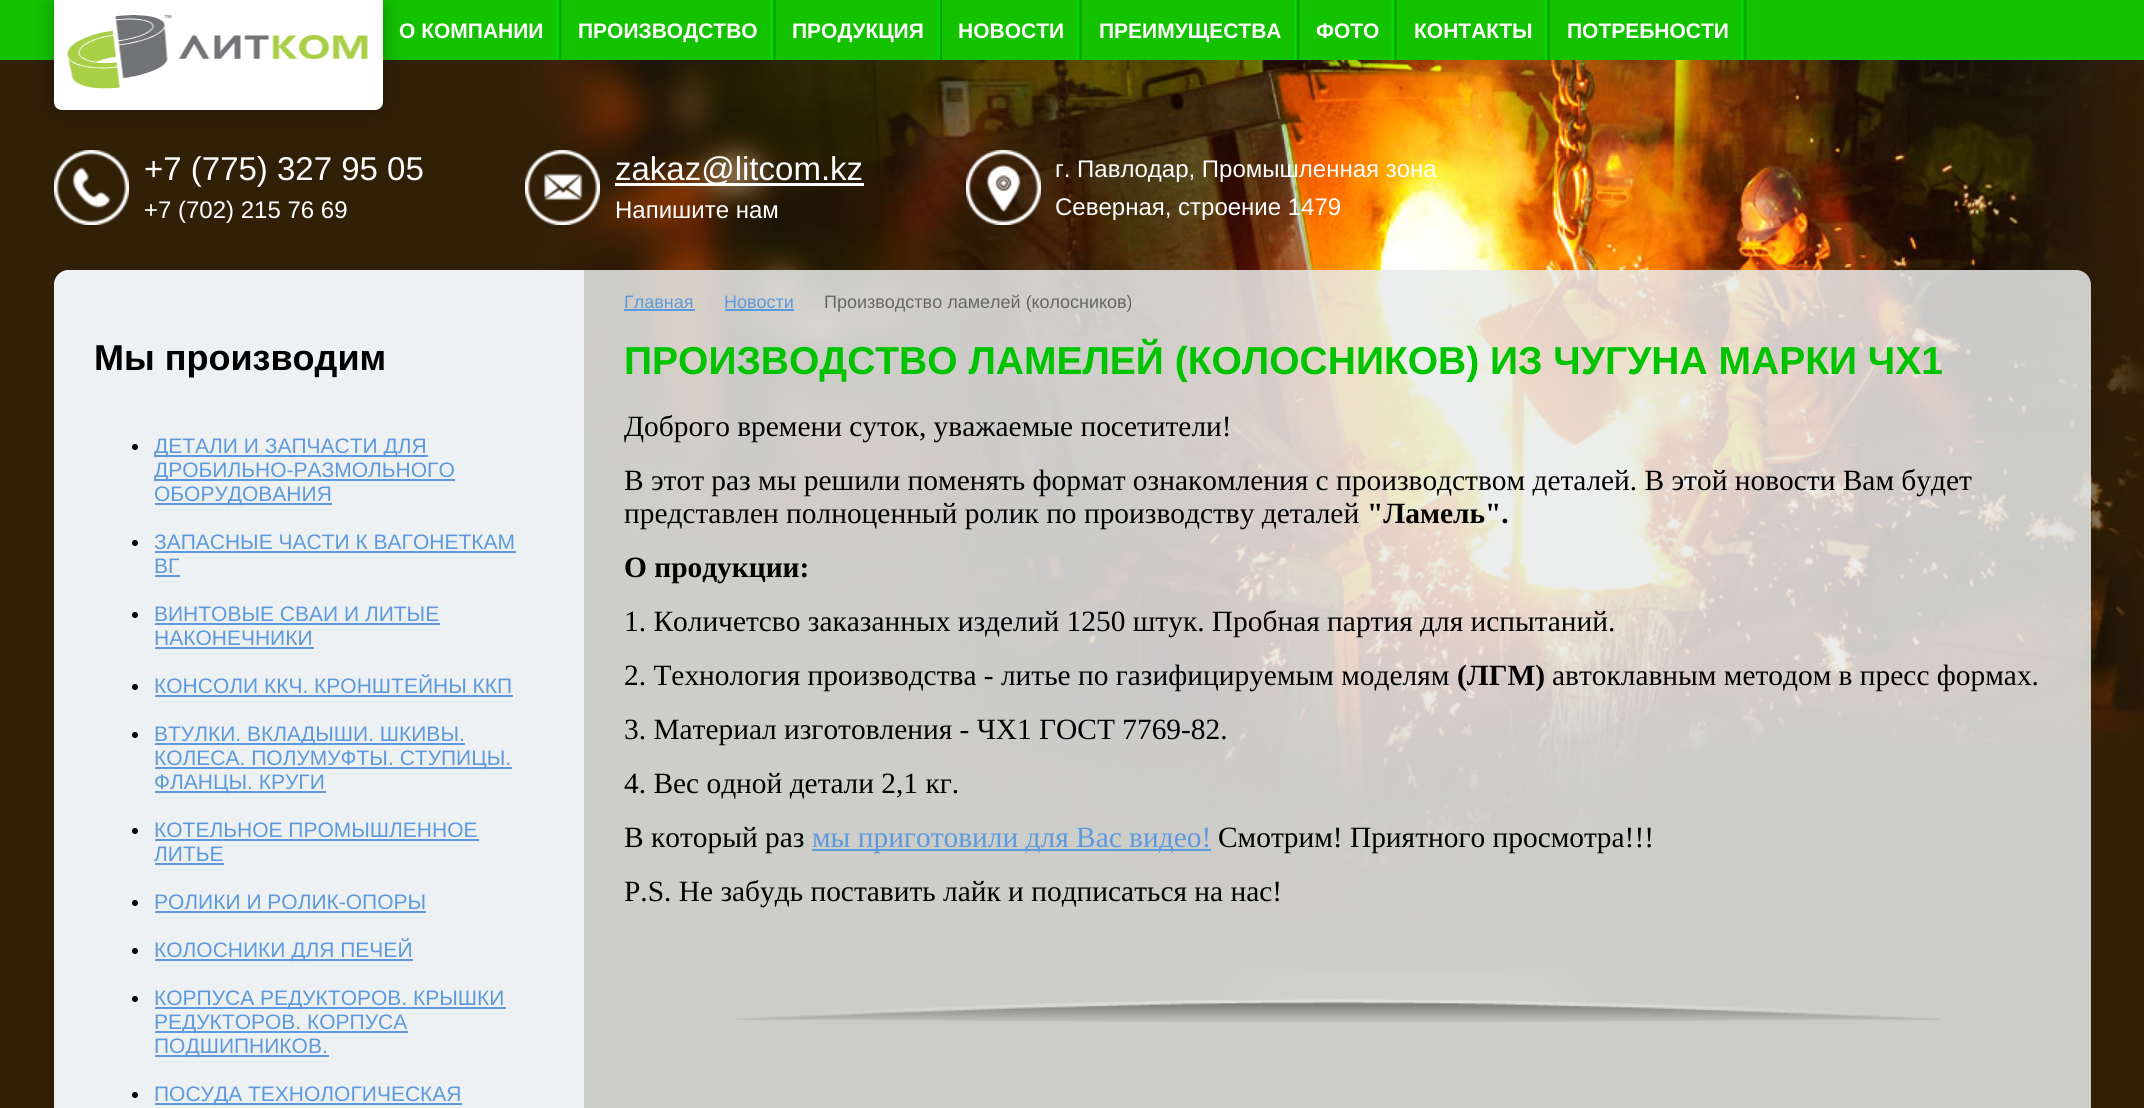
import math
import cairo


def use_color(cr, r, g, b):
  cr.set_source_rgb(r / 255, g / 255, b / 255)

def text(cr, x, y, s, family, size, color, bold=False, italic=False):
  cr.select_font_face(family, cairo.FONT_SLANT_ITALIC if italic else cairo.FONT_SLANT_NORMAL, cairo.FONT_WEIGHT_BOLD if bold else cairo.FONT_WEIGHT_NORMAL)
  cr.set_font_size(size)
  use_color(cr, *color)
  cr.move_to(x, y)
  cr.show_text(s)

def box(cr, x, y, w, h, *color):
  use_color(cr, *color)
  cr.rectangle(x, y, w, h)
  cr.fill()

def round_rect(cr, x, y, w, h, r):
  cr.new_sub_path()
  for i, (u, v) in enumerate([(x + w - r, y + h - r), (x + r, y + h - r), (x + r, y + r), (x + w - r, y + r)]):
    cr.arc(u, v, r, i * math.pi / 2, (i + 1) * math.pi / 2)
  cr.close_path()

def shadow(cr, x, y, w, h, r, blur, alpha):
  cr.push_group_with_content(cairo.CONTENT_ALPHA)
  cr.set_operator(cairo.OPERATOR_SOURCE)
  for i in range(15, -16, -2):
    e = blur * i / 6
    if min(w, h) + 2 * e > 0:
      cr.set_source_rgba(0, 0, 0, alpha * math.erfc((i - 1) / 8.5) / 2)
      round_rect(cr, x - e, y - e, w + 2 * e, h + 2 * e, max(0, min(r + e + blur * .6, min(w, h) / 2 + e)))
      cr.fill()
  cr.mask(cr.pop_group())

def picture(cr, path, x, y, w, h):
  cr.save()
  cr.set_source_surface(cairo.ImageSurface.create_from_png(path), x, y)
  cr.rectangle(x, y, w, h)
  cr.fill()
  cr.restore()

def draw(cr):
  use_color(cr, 48, 31, 2)
  cr.paint()
  box(cr, 0, 0, 2144, 60, 20, 195, 0)
  picture(cr, "img_07.png", 0, 60, 2144, 900)
  use_color(cr, 0, 0, 0)
  shadow(cr, 54, 0, 329, 110, 8, 11, 0.3)
  use_color(cr, 255, 255, 255)
  cr.new_path()
  cr.move_to(54, 0)
  cr.line_to(383, 0)
  cr.line_to(383, 102)
  cr.curve_to(383, 106.5, 379.5, 110, 375, 110)
  cr.line_to(62, 110)
  cr.curve_to(57.5, 110, 54, 106.5, 54, 102)
  cr.close_path()
  cr.fill()
  picture(cr, "img_01.png", 67, 15, 301, 74)
  picture(cr, "img_02.png", 556, 0, 6, 60)
  picture(cr, "img_03.png", 771, 0, 5, 60)
  picture(cr, "img_04.png", 937, 0, 5, 60)
  picture(cr, "img_05.png", 1076, 0, 6, 60)
  picture(cr, "img_06.png", 1294, 0, 5, 60)
  picture(cr, "img_05.png", 1391, 0, 6, 60)
  picture(cr, "img_03.png", 1545, 0, 5, 60)
  picture(cr, "img_02.png", 1741, 0, 6, 60)
  picture(cr, "img_08.png", 54, 150, 75, 75)
  picture(cr, "img_09.png", 525, 150, 75, 75)
  box(cr, 615, 183, 249, 3, 255, 255, 255)
  picture(cr, "img_10.png", 966, 150, 75, 75)
  cr.set_source_rgba(0.914, 0.922, 0.922, 0.85)
  round_rect(cr, 54, 270, 2037, 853, 15)
  cr.fill()
  cr.set_source_rgba(0.953, 0.969, 0.984, 0.85)
  cr.new_path()
  cr.move_to(69, 270)
  cr.line_to(584, 270)
  cr.line_to(584, 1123)
  cr.line_to(69, 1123)
  cr.curve_to(60.5, 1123, 54, 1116.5, 54, 1108)
  cr.line_to(54, 285)
  cr.curve_to(54, 276.5, 60.5, 270, 69, 270)
  cr.close_path()
  cr.fill()
  use_color(cr, 0, 0, 0)
  cr.arc(135, 447, 3, 0, 2 * math.pi)
  cr.fill()
  box(cr, 155, 455, 273, 2, 93, 153, 219)
  box(cr, 155, 479, 300, 2, 93, 153, 219)
  box(cr, 155, 503, 177, 2, 93, 153, 219)
  use_color(cr, 0, 0, 0)
  cr.arc(135, 543, 3, 0, 2 * math.pi)
  cr.fill()
  box(cr, 155, 551, 361, 2, 93, 153, 219)
  box(cr, 155, 575, 25, 2, 93, 153, 219)
  use_color(cr, 0, 0, 0)
  cr.arc(135, 615, 3, 0, 2 * math.pi)
  cr.fill()
  box(cr, 155, 623, 285, 2, 93, 153, 219)
  box(cr, 155, 647, 159, 2, 93, 153, 219)
  use_color(cr, 0, 0, 0)
  cr.arc(135, 687, 3, 0, 2 * math.pi)
  cr.fill()
  box(cr, 155, 695, 358, 2, 93, 153, 219)
  use_color(cr, 0, 0, 0)
  cr.arc(135, 735, 3, 0, 2 * math.pi)
  cr.fill()
  box(cr, 155, 743, 310, 2, 93, 153, 219)
  box(cr, 155, 767, 357, 2, 93, 153, 219)
  box(cr, 155, 791, 171, 2, 93, 153, 219)
  use_color(cr, 0, 0, 0)
  cr.arc(135, 831, 3, 0, 2 * math.pi)
  cr.fill()
  box(cr, 155, 839, 324, 2, 93, 153, 219)
  box(cr, 155, 863, 69, 2, 93, 153, 219)
  use_color(cr, 0, 0, 0)
  cr.arc(135, 903, 3, 0, 2 * math.pi)
  cr.fill()
  box(cr, 155, 911, 271, 2, 93, 153, 219)
  use_color(cr, 0, 0, 0)
  cr.arc(135, 951, 3, 0, 2 * math.pi)
  cr.fill()
  box(cr, 155, 959, 258, 2, 93, 153, 219)
  use_color(cr, 0, 0, 0)
  cr.arc(135, 999, 3, 0, 2 * math.pi)
  cr.fill()
  box(cr, 155, 1007, 351, 2, 93, 153, 219)
  box(cr, 155, 1031, 253, 2, 93, 153, 219)
  box(cr, 155, 1055, 174, 2, 93, 153, 219)
  use_color(cr, 0, 0, 0)
  cr.arc(135, 1095, 3, 0, 2 * math.pi)
  cr.fill()
  box(cr, 155, 1103, 307, 2, 93, 153, 219)
  picture(cr, "img_11.png", 736, 969, 1205, 54)
  box(cr, 624, 309, 71, 2, 93, 153, 219)
  box(cr, 725, 309, 69, 2, 93, 153, 219)
  box(cr, 812, 849, 399, 2, 93, 153, 219)
  text(cr, 399, 38, "О КОМПАНИИ", "Liberation Sans", 21, (255, 255, 255), bold=True)
  text(cr, 578, 38, "ПРОИЗВОДСТВО", "Liberation Sans", 21, (255, 255, 255), bold=True)
  text(cr, 792, 38, "ПРОДУКЦИЯ", "Liberation Sans", 21, (255, 255, 255), bold=True)
  text(cr, 958, 38, "НОВОСТИ", "Liberation Sans", 21, (255, 255, 255), bold=True)
  text(cr, 1099, 38, "ПРЕИМУЩЕСТВА", "Liberation Sans", 21, (255, 255, 255), bold=True)
  text(cr, 1316, 38, "ФОТО", "Liberation Sans", 21, (255, 255, 255), bold=True)
  text(cr, 1414, 38, "КОНТАКТЫ", "Liberation Sans", 21, (255, 255, 255), bold=True)
  text(cr, 1567, 38, "ПОТРЕБНОСТИ", "Liberation Sans", 21, (255, 255, 255), bold=True)
  text(cr, 144, 180, "+7 (775) 327 95 05", "Liberation Sans", 33, (255, 255, 255))
  text(cr, 144, 218, "+7 (702) 215 76 69", "Liberation Sans", 24, (255, 255, 255))
  text(cr, 615, 180, "zakaz@litcom.kz", "Liberation Sans", 33, (255, 255, 255))
  text(cr, 615, 218, "Напишите нам", "Liberation Sans", 24, (255, 255, 255))
  text(cr, 1055, 177, "г. Павлодар, Промышленная зона", "Liberation Sans", 24, (255, 255, 255))
  text(cr, 1055, 215, "Северная, строение 1479", "Liberation Sans", 24, (255, 255, 255))
  text(cr, 94, 370, "Мы производим", "Liberation Sans", 36, (0, 0, 0), bold=True)
  text(cr, 154, 453, "ДЕТАЛИ И ЗАПЧАСТИ ДЛЯ", "Liberation Sans", 21, (93, 153, 219))
  text(cr, 154, 477, "ДРОБИЛЬНО-РАЗМОЛЬНОГО", "Liberation Sans", 21, (93, 153, 219))
  text(cr, 154, 501, "ОБОРУДОВАНИЯ", "Liberation Sans", 21, (93, 153, 219))
  text(cr, 154, 549, "ЗАПАСНЫЕ ЧАСТИ К ВАГОНЕТКАМ", "Liberation Sans", 21, (93, 153, 219))
  text(cr, 154, 573, "ВГ", "Liberation Sans", 21, (93, 153, 219))
  text(cr, 154, 621, "ВИНТОВЫЕ СВАИ И ЛИТЫЕ", "Liberation Sans", 21, (93, 153, 219))
  text(cr, 154, 645, "НАКОНЕЧНИКИ", "Liberation Sans", 21, (93, 153, 219))
  text(cr, 154, 693, "КОНСОЛИ ККЧ. КРОНШТЕЙНЫ ККП", "Liberation Sans", 21, (93, 153, 219))
  text(cr, 154, 741, "ВТУЛКИ. ВКЛАДЫШИ. ШКИВЫ.", "Liberation Sans", 21, (93, 153, 219))
  text(cr, 154, 765, "КОЛЕСА. ПОЛУМУФТЫ. СТУПИЦЫ.", "Liberation Sans", 21, (93, 153, 219))
  text(cr, 154, 789, "ФЛАНЦЫ. КРУГИ", "Liberation Sans", 21, (93, 153, 219))
  text(cr, 154, 837, "КОТЕЛЬНОЕ ПРОМЫШЛЕННОЕ", "Liberation Sans", 21, (93, 153, 219))
  text(cr, 154, 861, "ЛИТЬЕ", "Liberation Sans", 21, (93, 153, 219))
  text(cr, 154, 909, "РОЛИКИ И РОЛИК-ОПОРЫ", "Liberation Sans", 21, (93, 153, 219))
  text(cr, 154, 957, "КОЛОСНИКИ ДЛЯ ПЕЧЕЙ", "Liberation Sans", 21, (93, 153, 219))
  text(cr, 154, 1005, "КОРПУСА РЕДУКТОРОВ. КРЫШКИ", "Liberation Sans", 21, (93, 153, 219))
  text(cr, 154, 1029, "РЕДУКТОРОВ. КОРПУСА", "Liberation Sans", 21, (93, 153, 219))
  text(cr, 154, 1053, "ПОДШИПНИКОВ.", "Liberation Sans", 21, (93, 153, 219))
  text(cr, 154, 1101, "ПОСУДА ТЕХНОЛОГИЧЕСКАЯ", "Liberation Sans", 21, (93, 153, 219))
  text(cr, 624, 308, "Главная", "Liberation Sans", 18, (93, 153, 219))
  text(cr, 724, 308, "Новости", "Liberation Sans", 18, (93, 153, 219))
  text(cr, 824, 308, "Производство ламелей (колосников)", "Liberation Sans", 18, (102, 102, 102))
  text(cr, 624, 374, "ПРОИЗВОДСТВО ЛАМЕЛЕЙ (КОЛОСНИКОВ) ИЗ ЧУГУНА МАРКИ ЧХ1", "Liberation Sans", 39, (0, 195, 0), bold=True)
  text(cr, 624, 436, "Доброго времени суток, уважаемые посетители!", "Liberation Serif", 29.4, (0, 0, 0))
  text(cr, 624, 490, "В этот раз мы решили поменять формат ознакомления с производством деталей. В этой новости Вам будет", "Liberation Serif", 29.4, (0, 0, 0))
  text(cr, 624, 523, "представлен полноценный ролик по производству деталей", "Liberation Serif", 29.4, (0, 0, 0))
  text(cr, 1367, 523, "\"Ламель\".", "Liberation Serif", 29.4, (0, 0, 0), bold=True)
  text(cr, 624, 577, "О продукции:", "Liberation Serif", 29.4, (0, 0, 0), bold=True)
  text(cr, 624, 631, "1. Количетсво заказанных изделий 1250 штук. Пробная партия для испытаний.", "Liberation Serif", 29.4, (0, 0, 0))
  text(cr, 624, 685, "2. Технология производства - литье по газифицируемым моделям", "Liberation Serif", 29.4, (0, 0, 0))
  text(cr, 1457, 685, "(ЛГМ)", "Liberation Serif", 29.4, (0, 0, 0), bold=True)
  text(cr, 1552, 685, "автоклавным методом в пресс формах.", "Liberation Serif", 29.4, (0, 0, 0))
  text(cr, 624, 739, "3. Материал изготовления - ЧХ1 ГОСТ 7769-82.", "Liberation Serif", 29.4, (0, 0, 0))
  text(cr, 624, 793, "4. Вес одной детали 2,1 кг.", "Liberation Serif", 29.4, (0, 0, 0))
  text(cr, 624, 847, "В который раз", "Liberation Serif", 29.4, (0, 0, 0))
  text(cr, 812, 847, "мы приготовили для Вас видео!", "Liberation Serif", 29.4, (93, 153, 219))
  text(cr, 1218, 847, "Смотрим! Приятного просмотра!!!", "Liberation Serif", 29.4, (0, 0, 0))
  text(cr, 624, 901, "P.S. Не забудь поставить лайк и подписаться на нас!", "Liberation Serif", 29.4, (0, 0, 0))


surface = cairo.ImageSurface(cairo.FORMAT_RGB24, 2144, 1108)
cr = cairo.Context(surface)
options = cairo.FontOptions()
options.set_hint_metrics(cairo.HINT_METRICS_OFF)
options.set_hint_style(cairo.HINT_STYLE_NONE)
cr.set_font_options(options)
cr.set_miter_limit(4)
draw(cr)
surface.write_to_png("out.png")
